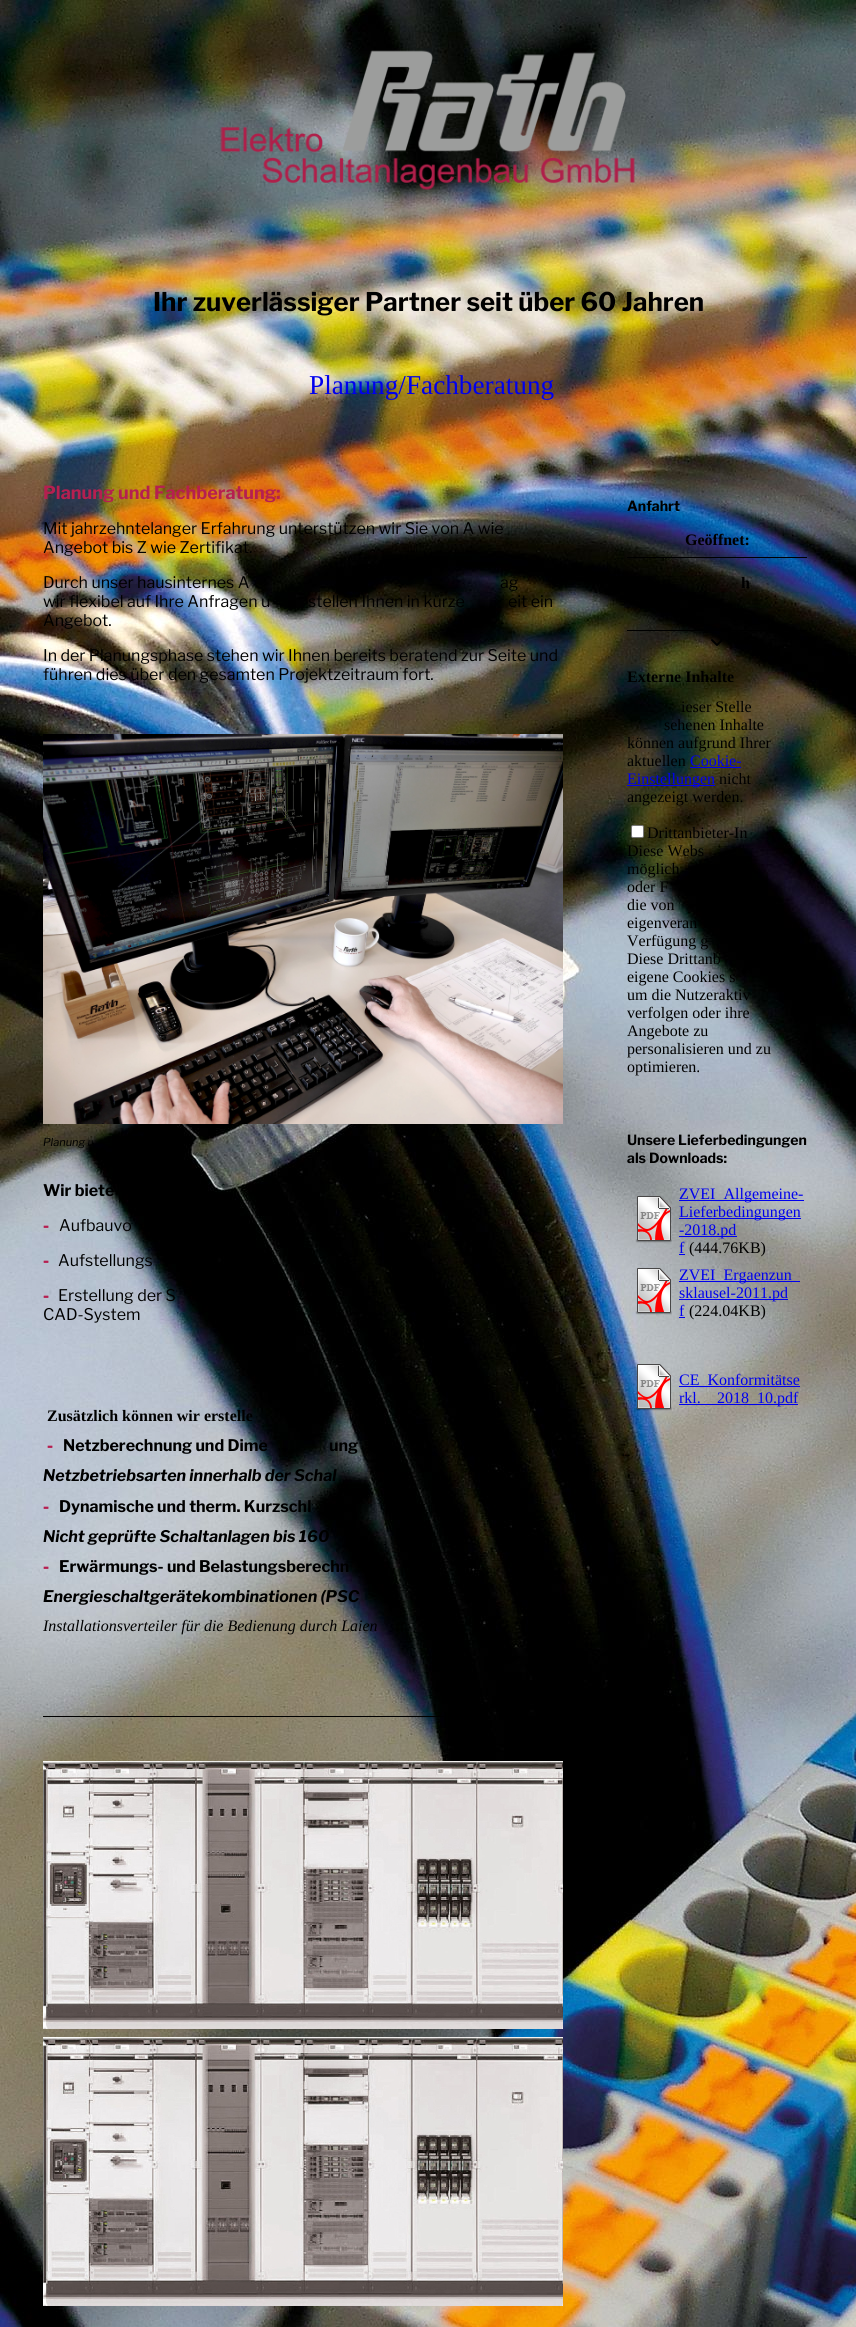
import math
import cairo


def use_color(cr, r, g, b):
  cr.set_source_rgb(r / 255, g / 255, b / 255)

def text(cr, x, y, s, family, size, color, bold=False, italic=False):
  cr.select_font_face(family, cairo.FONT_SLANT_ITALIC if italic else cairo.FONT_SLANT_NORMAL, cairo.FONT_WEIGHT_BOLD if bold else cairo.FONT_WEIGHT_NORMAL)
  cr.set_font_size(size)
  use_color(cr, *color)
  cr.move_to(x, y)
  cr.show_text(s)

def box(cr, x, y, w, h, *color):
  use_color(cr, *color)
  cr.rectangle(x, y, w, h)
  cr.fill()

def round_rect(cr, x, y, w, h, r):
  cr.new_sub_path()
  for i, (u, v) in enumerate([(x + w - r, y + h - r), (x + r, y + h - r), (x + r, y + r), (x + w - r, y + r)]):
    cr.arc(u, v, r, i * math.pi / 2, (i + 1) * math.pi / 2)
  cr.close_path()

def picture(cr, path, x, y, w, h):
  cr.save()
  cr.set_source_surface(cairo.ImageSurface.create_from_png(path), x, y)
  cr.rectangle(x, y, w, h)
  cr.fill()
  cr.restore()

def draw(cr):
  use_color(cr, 255, 255, 255)
  cr.paint()
  picture(cr, "img_01.png", 0, 0, 856, 2327)
  picture(cr, "img_02.png", 220, 50, 415, 140)
  picture(cr, "img_03.png", 43, 734, 520, 390)
  box(cr, 43, 1716, 401, 1, 0, 0, 0)
  picture(cr, "img_04.png", 43, 1761, 520, 268)
  picture(cr, "img_05.png", 43, 2037, 520, 269)
  box(cr, 627, 557, 180, 1, 0, 0, 0)
  box(cr, 627, 630, 180, 1, 0, 0, 0)
  picture(cr, "img_06.png", 711, 639, 11, 7)
  box(cr, 690, 767, 51, 1, 0, 0, 238)
  box(cr, 627, 785, 88, 1, 0, 0, 238)
  use_color(cr, 255, 255, 255)
  round_rect(cr, 631.5, 825.5, 12, 12, 1.5)
  cr.fill_preserve()
  use_color(cr, 118, 118, 118)
  cr.set_line_width(1)
  cr.stroke()
  picture(cr, "img_07.png", 635, 1196, 37, 47)
  box(cr, 679, 1200, 125, 1, 0, 0, 238)
  box(cr, 679, 1218, 122, 1, 0, 0, 238)
  box(cr, 679, 1236, 58, 1, 0, 0, 238)
  box(cr, 679, 1254, 6, 1, 0, 0, 238)
  picture(cr, "img_08.png", 635, 1268, 37, 47)
  box(cr, 679, 1281, 121, 1, 0, 0, 238)
  box(cr, 679, 1299, 109, 1, 0, 0, 238)
  box(cr, 679, 1317, 6, 1, 0, 0, 238)
  picture(cr, "img_09.png", 635, 1364, 37, 47)
  box(cr, 679, 1386, 121, 1, 0, 0, 238)
  box(cr, 679, 1404, 119, 1, 0, 0, 238)
  text(cr, 153, 311, "Ihr zuverlässiger Partner seit über 60 Jahren", "Libre Franklin", 25.7, (0, 0, 0), bold=True)
  text(cr, 309, 394, "Planung/Fachberatung", "Liberation Serif", 27.25, (0, 0, 238))
  text(cr, 43, 499, "Planung und Fachberatung:", "Libre Franklin", 18, (182, 31, 80), bold=True)
  text(cr, 43, 534, "Mit jahrzehntelanger Erfahrung unterstützen wir Sie von A wie", "Libre Franklin", 16, (0, 0, 0))
  text(cr, 43, 553, "Angebot bis Z wie Zertifikat.", "Libre Franklin", 16, (0, 0, 0))
  text(cr, 43, 588, "Durch unser hausinternes A", "Libre Franklin", 16, (0, 0, 0))
  text(cr, 500, 588, "ag", "Libre Franklin", 16, (0, 0, 0))
  text(cr, 43, 607, "wir flexibel auf Ihre Anfragen u", "Libre Franklin", 16, (0, 0, 0))
  text(cr, 308, 607, "stellen Ihnen in kürze", "Libre Franklin", 16, (0, 0, 0))
  text(cr, 508, 607, "eit ein", "Libre Franklin", 16, (0, 0, 0))
  text(cr, 43, 626, "Angebot.", "Libre Franklin", 16, (0, 0, 0))
  text(cr, 43, 661, "In der Planungsphase stehen wir Ihnen bereits beratend zur Seite und", "Libre Franklin", 16, (0, 0, 0))
  text(cr, 43, 680, "führen dies über den gesamten Projektzeitraum fort.", "Libre Franklin", 16, (0, 0, 0))
  text(cr, 43, 1146, "Planung u", "Libre Franklin", 11, (0, 0, 0), italic=True)
  text(cr, 43, 1196, "Wir biete", "Libre Franklin", 16, (0, 0, 0), bold=True)
  text(cr, 43, 1231, "-", "Libre Franklin Black", 16, (182, 31, 80))
  text(cr, 59, 1231, "Aufbauvo", "Libre Franklin", 16, (0, 0, 0))
  text(cr, 43, 1266, "-", "Libre Franklin Black", 16, (182, 31, 80))
  text(cr, 58, 1266, "Aufstellungs", "Libre Franklin", 16, (0, 0, 0))
  text(cr, 43, 1301, "-", "Libre Franklin Black", 16, (182, 31, 80))
  text(cr, 58, 1301, "Erstellung der S", "Libre Franklin", 16, (0, 0, 0))
  text(cr, 43, 1320, "CAD-System", "Libre Franklin", 16, (0, 0, 0))
  text(cr, 47, 1421, "Zusätzlich können wir erstelle", "Liberation Serif", 16, (0, 0, 0), bold=True)
  text(cr, 47, 1451, "-", "Libre Franklin Black", 16, (182, 31, 80))
  text(cr, 63, 1451, "Netzberechnung und Dime", "Libre Franklin", 16, (0, 0, 0), bold=True)
  text(cr, 329, 1451, "ung", "Libre Franklin", 16, (0, 0, 0), bold=True)
  text(cr, 43, 1481, "Netzbetriebsarten innerhalb der Schal", "Libre Franklin", 16, (0, 0, 0), bold=True, italic=True)
  text(cr, 43, 1512, "-", "Libre Franklin Black", 16, (182, 31, 80))
  text(cr, 59, 1512, "Dynamische und therm. Kurzschl", "Libre Franklin", 16, (0, 0, 0), bold=True)
  text(cr, 43, 1542, "Nicht geprüfte Schaltanlagen bis 160", "Libre Franklin", 16, (0, 0, 0), bold=True, italic=True)
  text(cr, 43, 1572, "-", "Libre Franklin Black", 16, (182, 31, 80))
  text(cr, 59, 1572, "Erwärmungs- und Belastungsberechn", "Libre Franklin", 16, (0, 0, 0), bold=True)
  text(cr, 43, 1602, "Energieschaltgerätekombinationen (PSC", "Libre Franklin", 16, (0, 0, 0), bold=True, italic=True)
  text(cr, 43, 1631, "Installationsverteiler für die Bedienung durch Laien", "Liberation Serif", 16, (0, 0, 0), italic=True)
  text(cr, 627, 511, "Anfahrt", "Libre Franklin", 14, (0, 0, 0), bold=True)
  text(cr, 685, 545, "Geöffnet:", "Liberation Serif", 16, (0, 0, 0), bold=True)
  text(cr, 741, 588, "h", "Liberation Serif", 16, (0, 0, 0), bold=True)
  text(cr, 627, 682, "Externe Inhalte", "Liberation Serif", 16, (0, 0, 0), bold=True)
  text(cr, 681, 712, "ieser Stelle", "Liberation Serif", 16, (0, 0, 0))
  text(cr, 664, 730, "sehenen Inhalte", "Liberation Serif", 16, (0, 0, 0))
  text(cr, 627, 748, "können aufgrund Ihrer", "Liberation Serif", 16, (0, 0, 0))
  text(cr, 627, 766, "aktuellen", "Liberation Serif", 16, (0, 0, 0))
  text(cr, 690, 766, "Cookie-", "Liberation Serif", 16, (0, 0, 238))
  text(cr, 627, 784, "Einstellungen", "Liberation Serif", 16, (0, 0, 238))
  text(cr, 719, 784, "nicht", "Liberation Serif", 16, (0, 0, 0))
  text(cr, 627, 802, "angezeigt werden.", "Liberation Serif", 16, (0, 0, 0))
  text(cr, 647, 838, "Drittanbieter-In", "Liberation Serif", 16, (0, 0, 0))
  text(cr, 627, 856, "Diese Webs", "Liberation Serif", 16, (0, 0, 0))
  text(cr, 627, 874, "möglich", "Liberation Serif", 16, (0, 0, 0))
  text(cr, 627, 892, "oder F", "Liberation Serif", 16, (0, 0, 0))
  text(cr, 627, 910, "die von", "Liberation Serif", 16, (0, 0, 0))
  text(cr, 627, 928, "eigenveran", "Liberation Serif", 16, (0, 0, 0))
  text(cr, 627, 946, "Verfügung g", "Liberation Serif", 16, (0, 0, 0))
  text(cr, 627, 964, "Diese Drittanb", "Liberation Serif", 16, (0, 0, 0))
  text(cr, 627, 982, "eigene Cookies s", "Liberation Serif", 16, (0, 0, 0))
  text(cr, 627, 1000, "um die Nutzeraktiv", "Liberation Serif", 16, (0, 0, 0))
  text(cr, 627, 1018, "verfolgen oder ihre", "Liberation Serif", 16, (0, 0, 0))
  text(cr, 627, 1036, "Angebote zu", "Liberation Serif", 16, (0, 0, 0))
  text(cr, 627, 1054, "personalisieren und zu", "Liberation Serif", 16, (0, 0, 0))
  text(cr, 627, 1072, "optimieren.", "Liberation Serif", 16, (0, 0, 0))
  text(cr, 627, 1145, "Unsere Lieferbedingungen", "Libre Franklin", 14, (0, 0, 0), bold=True)
  text(cr, 627, 1163, "als Downloads:", "Libre Franklin", 14, (0, 0, 0), bold=True)
  text(cr, 679, 1199, "ZVEI_Allgemeine-", "Liberation Serif", 16, (0, 0, 238))
  text(cr, 679, 1217, "Lieferbedingungen", "Liberation Serif", 16, (0, 0, 238))
  text(cr, 679, 1235, "-2018.pd", "Liberation Serif", 16, (0, 0, 238))
  text(cr, 679, 1253, "f", "Liberation Serif", 16, (0, 0, 238))
  text(cr, 689, 1253, "(444.76KB)", "Liberation Serif", 16, (0, 0, 0))
  text(cr, 679, 1280, "ZVEI_Ergaenzun", "Liberation Serif", 16, (0, 0, 238))
  text(cr, 679, 1298, "sklausel-2011.pd", "Liberation Serif", 16, (0, 0, 238))
  text(cr, 679, 1316, "f", "Liberation Serif", 16, (0, 0, 238))
  text(cr, 689, 1316, "(224.04KB)", "Liberation Serif", 16, (0, 0, 0))
  text(cr, 679, 1385, "CE_Konformitätse", "Liberation Serif", 16, (0, 0, 238))
  text(cr, 679, 1403, "rkl.", "Liberation Serif", 16, (0, 0, 238))
  text(cr, 717, 1403, "2018_10.pdf", "Liberation Serif", 16, (0, 0, 238))


surface = cairo.ImageSurface(cairo.FORMAT_RGB24, 856, 2327)
cr = cairo.Context(surface)
options = cairo.FontOptions()
options.set_hint_metrics(cairo.HINT_METRICS_OFF)
options.set_hint_style(cairo.HINT_STYLE_NONE)
cr.set_font_options(options)
cr.set_miter_limit(4)
draw(cr)
surface.write_to_png("out.png")
